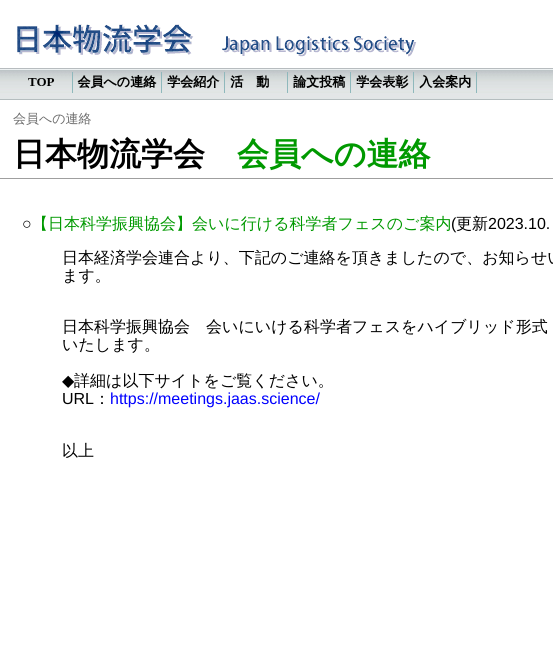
import math
import cairo


def use_color(cr, r, g, b):
  cr.set_source_rgb(r / 255, g / 255, b / 255)

def text(cr, x, y, s, family, size, color, bold=False, italic=False):
  cr.select_font_face(family, cairo.FONT_SLANT_ITALIC if italic else cairo.FONT_SLANT_NORMAL, cairo.FONT_WEIGHT_BOLD if bold else cairo.FONT_WEIGHT_NORMAL)
  cr.set_font_size(size)
  use_color(cr, *color)
  cr.move_to(x, y)
  cr.show_text(s)

def box(cr, x, y, w, h, *color):
  use_color(cr, *color)
  cr.rectangle(x, y, w, h)
  cr.fill()

def picture(cr, path, x, y, w, h):
  cr.save()
  cr.set_source_surface(cairo.ImageSurface.create_from_png(path), x, y)
  cr.rectangle(x, y, w, h)
  cr.fill()
  cr.restore()

def draw(cr):
  use_color(cr, 255, 255, 255)
  cr.paint()
  picture(cr, "img_01.png", 0, 24, 553, 76)
  box(cr, 0, 178, 553, 1, 159, 159, 159)
  text(cr, 13, 123, "会員への連絡", "WenQuanYi Zen Hei Medium", 13, (107, 107, 107))
  text(cr, 13, 165, "日本物流学会", "WenQuanYi Zen Hei", 32, (0, 0, 0), bold=True)
  text(cr, 237, 165, "会員への連絡", "WenQuanYi Zen Hei", 32, (0, 153, 0), bold=True)
  text(cr, 22, 229, "○", "Liberation Sans", 16, (0, 0, 0))
  text(cr, 32, 229, "【日本科学振興協会】会いに行ける科学者フェスのご案内", "WenQuanYi Zen Hei Medium", 16, (0, 153, 0))
  text(cr, 451, 229, "(", "Liberation Sans", 16, (0, 0, 0))
  text(cr, 456, 229, "更新", "WenQuanYi Zen Hei Medium", 16, (0, 0, 0))
  text(cr, 488, 229, "2023.10.", "Liberation Sans", 16, (0, 0, 0))
  text(cr, 62, 263, "日本経済学会連合より、下記のご連絡を頂きましたので、お知らせい", "WenQuanYi Zen Hei Medium", 16, (0, 0, 0))
  text(cr, 62, 281, "ます。", "WenQuanYi Zen Hei Medium", 16, (0, 0, 0))
  text(cr, 62, 332, "日本科学振興協会　会いにいける科学者フェスをハイブリッド形式", "WenQuanYi Zen Hei Medium", 16, (0, 0, 0))
  text(cr, 62, 350, "いたします。", "WenQuanYi Zen Hei Medium", 16, (0, 0, 0))
  text(cr, 62, 386, "◆", "DejaVu Sans", 16, (0, 0, 0))
  text(cr, 74, 386, "詳細は以下サイトをご覧ください。", "WenQuanYi Zen Hei Medium", 16, (0, 0, 0))
  text(cr, 62, 404, "URL", "Liberation Sans", 16, (0, 0, 0))
  text(cr, 94, 404, "：", "WenQuanYi Zen Hei Medium", 16, (0, 0, 0))
  text(cr, 110, 404, "https://meetings.jaas.science/", "Liberation Sans", 16, (0, 0, 255))
  text(cr, 62, 456, "以上", "WenQuanYi Zen Hei Medium", 16, (0, 0, 0))


surface = cairo.ImageSurface(cairo.FORMAT_RGB24, 553, 652)
cr = cairo.Context(surface)
options = cairo.FontOptions()
options.set_hint_metrics(cairo.HINT_METRICS_OFF)
options.set_hint_style(cairo.HINT_STYLE_NONE)
cr.set_font_options(options)
cr.set_miter_limit(4)
draw(cr)
surface.write_to_png("out.png")
